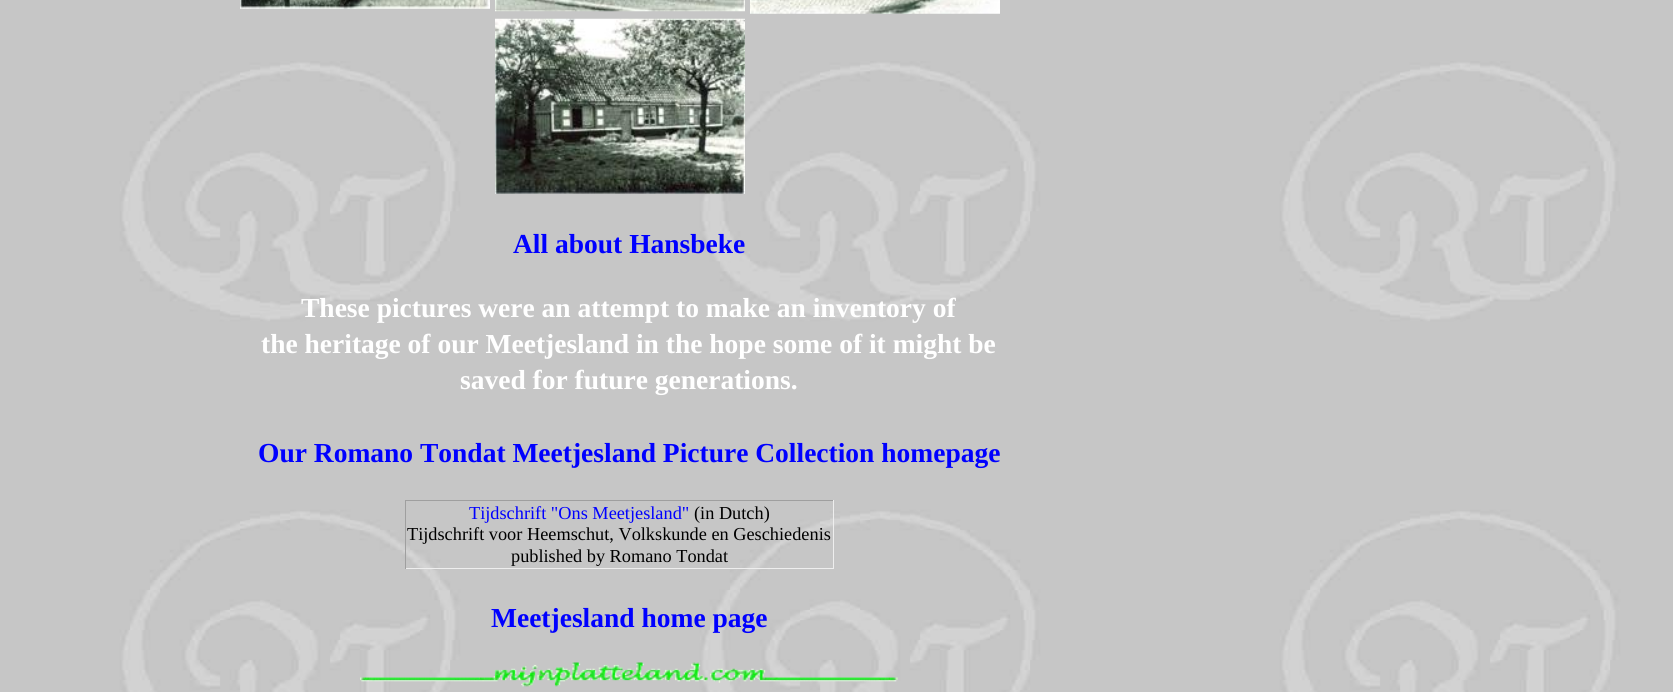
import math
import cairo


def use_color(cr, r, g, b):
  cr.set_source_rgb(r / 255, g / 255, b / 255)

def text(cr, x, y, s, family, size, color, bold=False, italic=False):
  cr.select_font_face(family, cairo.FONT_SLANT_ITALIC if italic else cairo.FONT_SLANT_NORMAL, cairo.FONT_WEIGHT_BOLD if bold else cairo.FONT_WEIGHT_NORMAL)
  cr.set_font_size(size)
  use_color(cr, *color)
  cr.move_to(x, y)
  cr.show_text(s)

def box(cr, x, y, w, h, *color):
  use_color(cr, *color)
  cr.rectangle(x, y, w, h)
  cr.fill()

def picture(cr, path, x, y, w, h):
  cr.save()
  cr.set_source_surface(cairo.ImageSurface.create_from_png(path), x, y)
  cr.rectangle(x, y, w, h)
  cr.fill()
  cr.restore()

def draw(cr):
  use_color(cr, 255, 255, 255)
  cr.paint()
  picture(cr, "img_01.png", 0, 0, 1673, 692)
  picture(cr, "img_02.png", 240, 0, 250, 9)
  picture(cr, "img_03.png", 495, 0, 250, 12)
  picture(cr, "img_04.png", 750, 0, 250, 14)
  picture(cr, "img_05.png", 495, 18, 250, 176)
  box(cr, 405, 500, 429, 1, 159, 159, 159)
  box(cr, 833, 500, 1, 69, 238, 238, 238)
  box(cr, 405, 568, 429, 1, 238, 238, 238)
  box(cr, 405, 500, 1, 69, 159, 159, 159)
  picture(cr, "img_06.png", 360, 662, 538, 25)
  text(cr, 513, 253, "All about Hansbeke", "Liberation Serif", 27.5, (0, 0, 255), bold=True)
  text(cr, 301, 317, "These pictures were an attempt to make an inventory of", "Liberation Serif", 27.5, (255, 255, 255), bold=True)
  text(cr, 261, 353, "the heritage of our Meetjesland in the hope some of it might be", "Liberation Serif", 27.5, (255, 255, 255), bold=True)
  text(cr, 460, 389, "saved for future generations.", "Liberation Serif", 27.5, (255, 255, 255), bold=True)
  text(cr, 258, 462, "Our Romano Tondat Meetjesland Picture Collection homepage", "Liberation Serif", 27.5, (0, 0, 255), bold=True)
  text(cr, 469, 519, "Tijdschrift \"Ons Meetjesland\"", "Liberation Serif", 18.3, (0, 0, 255))
  text(cr, 694, 519, "(in Dutch)", "Liberation Serif", 18.3, (0, 0, 0))
  text(cr, 407, 540, "Tijdschrift voor Heemschut, Volkskunde en Geschiedenis", "Liberation Serif", 18.3, (0, 0, 0))
  text(cr, 511, 562, "published by Romano Tondat", "Liberation Serif", 18.3, (0, 0, 0))
  text(cr, 491, 627, "Meetjesland home page", "Liberation Serif", 27.5, (0, 0, 255), bold=True)


surface = cairo.ImageSurface(cairo.FORMAT_RGB24, 1673, 692)
cr = cairo.Context(surface)
options = cairo.FontOptions()
options.set_hint_metrics(cairo.HINT_METRICS_OFF)
options.set_hint_style(cairo.HINT_STYLE_NONE)
cr.set_font_options(options)
cr.set_miter_limit(4)
draw(cr)
surface.write_to_png("out.png")
